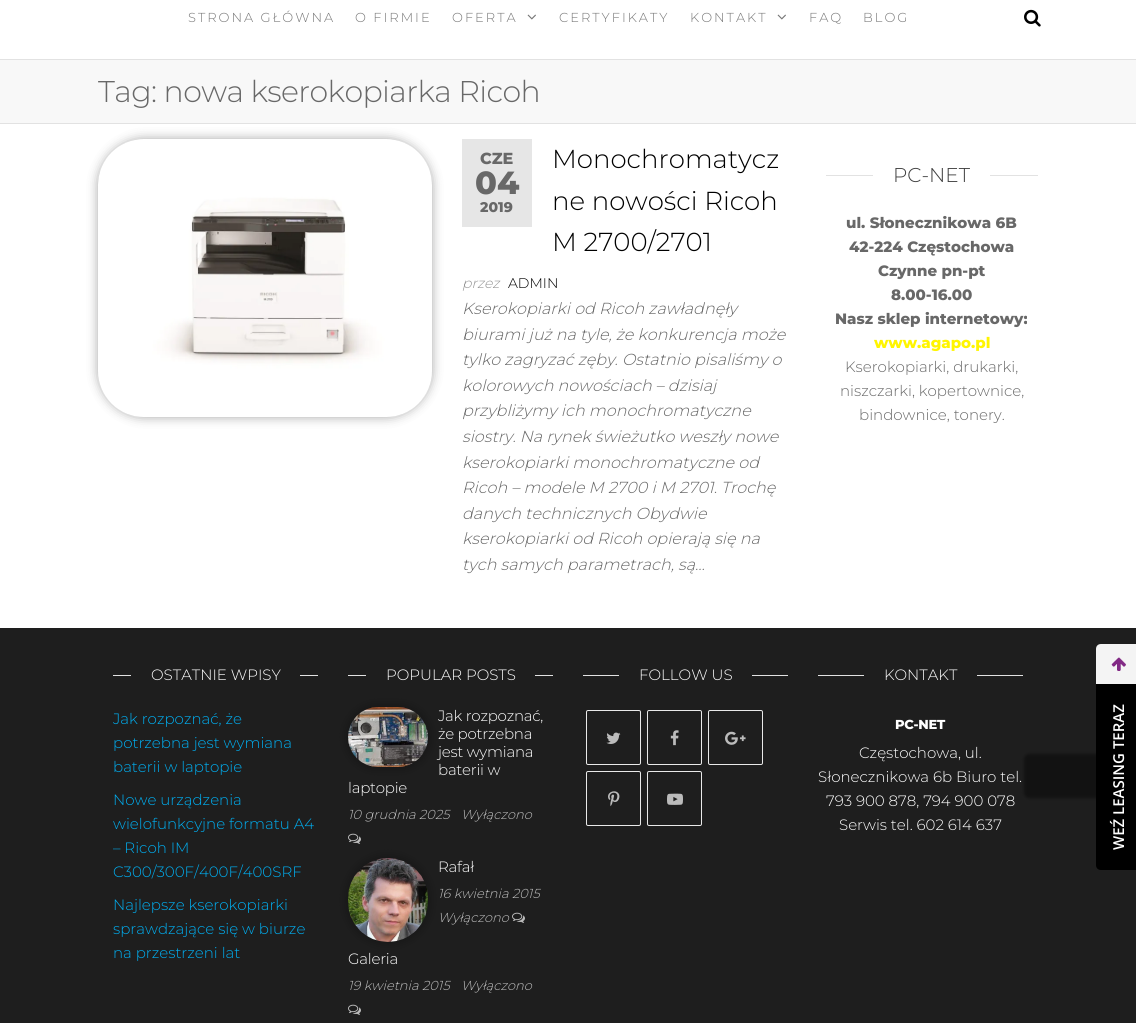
import math
import cairo


def use_color(cr, r, g, b):
  cr.set_source_rgb(r / 255, g / 255, b / 255)

def text(cr, x, y, s, family, size, color, bold=False, italic=False):
  cr.select_font_face(family, cairo.FONT_SLANT_ITALIC if italic else cairo.FONT_SLANT_NORMAL, cairo.FONT_WEIGHT_BOLD if bold else cairo.FONT_WEIGHT_NORMAL)
  cr.set_font_size(size)
  use_color(cr, *color)
  cr.move_to(x, y)
  cr.show_text(s)

def spaced_text(cr, x, y, s, letter, word):
  cr.move_to(x, y)
  for ch in s:
    cr.show_text(ch)
    cr.rel_move_to(letter + word * (ch == ' '), 0)

def box(cr, x, y, w, h, *color):
  use_color(cr, *color)
  cr.rectangle(x, y, w, h)
  cr.fill()

def round_rect(cr, x, y, w, h, r):
  cr.new_sub_path()
  for i, (u, v) in enumerate([(x + w - r, y + h - r), (x + r, y + h - r), (x + r, y + r), (x + w - r, y + r)]):
    cr.arc(u, v, r, i * math.pi / 2, (i + 1) * math.pi / 2)
  cr.close_path()

def shadow(cr, x, y, w, h, r, blur, alpha):
  cr.push_group_with_content(cairo.CONTENT_ALPHA)
  cr.set_operator(cairo.OPERATOR_SOURCE)
  for i in range(15, -16, -2):
    e = blur * i / 6
    if min(w, h) + 2 * e > 0:
      cr.set_source_rgba(0, 0, 0, alpha * math.erfc((i - 1) / 8.5) / 2)
      round_rect(cr, x - e, y - e, w + 2 * e, h + 2 * e, max(0, min(r + e + blur * .6, min(w, h) / 2 + e)))
      cr.fill()
  cr.mask(cr.pop_group())

def picture(cr, path, x, y, w, h):
  cr.save()
  cr.set_source_surface(cairo.ImageSurface.create_from_png(path), x, y)
  cr.rectangle(x, y, w, h)
  cr.fill()
  cr.restore()

def draw(cr):
  use_color(cr, 255, 255, 255)
  cr.paint()
  box(cr, 0, 59, 1136, 1, 226, 226, 226)
  picture(cr, "img_01.png", 527, 14, 9, 6)
  picture(cr, "img_01.png", 777, 14, 9, 6)
  picture(cr, "img_02.png", 1024, 9, 17, 18)
  box(cr, 0, 60, 1136, 63, 248, 248, 248)
  box(cr, 0, 123, 1136, 1, 226, 226, 226)
  use_color(cr, 0, 0, 0)
  shadow(cr, 98, 139, 334, 278, 46, 5.5, 0.35)
  picture(cr, "img_03.png", 98, 139, 334, 278)
  box(cr, 462, 139, 70, 88, 230, 230, 230)
  box(cr, 826, 175, 212, 1, 226, 226, 226)
  box(cr, 873, 175, 117, 1, 255, 255, 255)
  box(cr, 0, 628, 1136, 395, 30, 30, 30)
  box(cr, 113, 675, 205, 1, 226, 226, 226)
  box(cr, 131, 675, 169, 1, 30, 30, 30)
  box(cr, 348, 675, 205, 1, 226, 226, 226)
  box(cr, 366, 675, 169, 1, 30, 30, 30)
  use_color(cr, 0, 0, 0)
  shadow(cr, 348, 707, 80, 60, 30, 5.5, 0.35)
  picture(cr, "img_04.png", 348, 707, 80, 60)
  shadow(cr, 348, 858, 80, 84, 40, 5.5, 0.35)
  picture(cr, "img_05.png", 348, 833, 13, 11)
  picture(cr, "img_06.png", 348, 858, 80, 84)
  picture(cr, "img_05.png", 512, 912, 13, 11)
  picture(cr, "img_05.png", 348, 1004, 13, 11)
  box(cr, 583, 675, 205, 1, 226, 226, 226)
  box(cr, 619, 675, 133, 1, 30, 30, 30)
  round_rect(cr, 586.5, 710.5, 54, 54, 1.5)
  use_color(cr, 233, 233, 233)
  cr.set_line_width(1)
  cr.stroke()
  picture(cr, "img_07.png", 606, 732, 15, 12)
  round_rect(cr, 647.5, 710.5, 54, 54, 1.5)
  cr.stroke()
  picture(cr, "img_08.png", 670, 730, 9, 16)
  round_rect(cr, 708.5, 710.5, 54, 54, 1.5)
  cr.stroke()
  picture(cr, "img_09.png", 725, 731, 21, 14)
  round_rect(cr, 586.5, 771.5, 54, 54, 1.5)
  cr.stroke()
  picture(cr, "img_10.png", 608, 791, 12, 16)
  round_rect(cr, 647.5, 771.5, 54, 54, 1.5)
  cr.stroke()
  picture(cr, "img_11.png", 667, 793, 16, 12)
  box(cr, 818, 675, 205, 1, 226, 226, 226)
  box(cr, 864, 675, 113, 1, 30, 30, 30)
  use_color(cr, 0, 0, 0)
  shadow(cr, 1024, 754, 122, 44, 5, 1.5, 0.4)
  use_color(cr, 0, 0, 0)
  cr.new_path()
  cr.move_to(1096, 865)
  cr.line_to(1096, 684)
  cr.line_to(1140, 684)
  cr.line_to(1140, 870)
  cr.line_to(1101, 870)
  cr.curve_to(1098, 870, 1096, 868, 1096, 865)
  cr.close_path()
  cr.fill()
  use_color(cr, 244, 244, 244)
  cr.new_path()
  cr.move_to(1096, 684)
  cr.line_to(1096, 649)
  cr.curve_to(1096, 646, 1098, 644, 1101, 644)
  cr.line_to(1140, 644)
  cr.line_to(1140, 684)
  cr.close_path()
  cr.fill()
  picture(cr, "img_12.png", 1111, 657, 15, 14)
  cr.select_font_face("Montserrat Light")
  cr.set_font_size(13)
  use_color(cr, 119, 119, 119)
  spaced_text(cr, 188, 22, "STRONA GŁÓWNA", 2, 0)
  spaced_text(cr, 355, 22, "O FIRMIE", 2, 0)
  spaced_text(cr, 452, 22, "OFERTA", 2, 0)
  spaced_text(cr, 559, 22, "CERTYFIKATY", 2, 0)
  spaced_text(cr, 690, 22, "KONTAKT", 2, 0)
  spaced_text(cr, 809, 22, "FAQ", 2, 0)
  spaced_text(cr, 863, 22, "BLOG", 2, 0)
  cr.set_font_size(30)
  use_color(cr, 104, 104, 104)
  spaced_text(cr, 98, 102, "Tag: nowa kserokopiarka Ricoh", -0.6, 0)
  text(cr, 480, 164, "CZE", "Montserrat ExtraBold", 16, (104, 104, 104))
  text(cr, 475, 194, "04", "Montserrat ExtraBold", 32, (104, 104, 104))
  text(cr, 480, 212, "2019", "Montserrat ExtraBold", 14, (104, 104, 104))
  text(cr, 552, 168, "Monochromatycz", "Montserrat Light", 26, (0, 0, 0))
  text(cr, 552, 210, "ne nowości Ricoh", "Montserrat Light", 26, (0, 0, 0))
  text(cr, 552, 251, "M 2700/2701", "Montserrat Light", 26, (0, 0, 0))
  text(cr, 462, 288, "przez", "Montserrat Light", 14, (149, 149, 149), italic=True)
  text(cr, 508, 288, "ADMIN", "Montserrat Light", 14, (0, 0, 0))
  text(cr, 462, 314, "Kserokopiarki od Ricoh zawładnęły", "Montserrat Light", 16, (104, 104, 104), italic=True)
  text(cr, 462, 340, "biurami już na tyle, że konkurencja może", "Montserrat Light", 16, (104, 104, 104), italic=True)
  text(cr, 462, 365, "tylko zagryzać zęby. Ostatnio pisaliśmy o", "Montserrat Light", 16, (104, 104, 104), italic=True)
  text(cr, 462, 391, "kolorowych nowościach – dzisiaj", "Montserrat Light", 16, (104, 104, 104), italic=True)
  text(cr, 462, 416, "przybliżymy ich monochromatyczne", "Montserrat Light", 16, (104, 104, 104), italic=True)
  text(cr, 462, 442, "siostry. Na rynek świeżutko weszły nowe", "Montserrat Light", 16, (104, 104, 104), italic=True)
  text(cr, 462, 468, "kserokopiarki monochromatyczne od", "Montserrat Light", 16, (104, 104, 104), italic=True)
  text(cr, 462, 493, "Ricoh – modele M 2700 i M 2701. Trochę", "Montserrat Light", 16, (104, 104, 104), italic=True)
  text(cr, 462, 519, "danych technicznych Obydwie", "Montserrat Light", 16, (104, 104, 104), italic=True)
  text(cr, 462, 544, "kserokopiarki od Ricoh opierają się na", "Montserrat Light", 16, (104, 104, 104), italic=True)
  text(cr, 462, 570, "tych samych parametrach, są…", "Montserrat Light", 16, (104, 104, 104), italic=True)
  text(cr, 893, 182, "PC-NET", "Montserrat Light", 20, (64, 64, 64))
  text(cr, 846, 228, "ul. Słonecznikowa 6B", "Montserrat ExtraBold", 15, (104, 104, 104))
  text(cr, 849, 252, "42-224 Częstochowa", "Montserrat ExtraBold", 15, (104, 104, 104))
  text(cr, 878, 276, "Czynne pn-pt", "Montserrat ExtraBold", 15, (104, 104, 104))
  text(cr, 891, 300, "8.00-16.00", "Montserrat ExtraBold", 15, (104, 104, 104))
  text(cr, 835, 324, "Nasz sklep internetowy:", "Montserrat ExtraBold", 15, (104, 104, 104))
  text(cr, 874, 348, "www.agapo.pl", "Montserrat ExtraBold", 15, (255, 245, 0))
  text(cr, 845, 372, "Kserokopiarki, drukarki,", "Montserrat Light", 15, (104, 104, 104))
  text(cr, 840, 396, "niszczarki, kopertownice,", "Montserrat Light", 15, (104, 104, 104))
  text(cr, 859, 420, "bindownice, tonery.", "Montserrat Light", 15, (104, 104, 104))
  text(cr, 151, 680, "OSTATNIE WPISY", "Montserrat Light", 15, (255, 255, 255))
  text(cr, 113, 724, "Jak rozpoznać, że", "Montserrat Light", 15, (0, 175, 242))
  text(cr, 113, 748, "potrzebna jest wymiana", "Montserrat Light", 15, (0, 175, 242))
  text(cr, 113, 772, "baterii w laptopie", "Montserrat Light", 15, (0, 175, 242))
  text(cr, 113, 805, "Nowe urządzenia", "Montserrat Light", 15, (0, 175, 242))
  text(cr, 113, 829, "wielofunkcyjne formatu A4", "Montserrat Light", 15, (0, 175, 242))
  text(cr, 113, 853, "– Ricoh IM", "Montserrat Light", 15, (0, 175, 242))
  text(cr, 113, 877, "C300/300F/400F/400SRF", "Montserrat Light", 15, (0, 175, 242))
  text(cr, 113, 910, "Najlepsze kserokopiarki", "Montserrat Light", 15, (0, 175, 242))
  text(cr, 113, 934, "sprawdzające się w biurze", "Montserrat Light", 15, (0, 175, 242))
  text(cr, 113, 958, "na przestrzeni lat", "Montserrat Light", 15, (0, 175, 242))
  text(cr, 386, 680, "POPULAR POSTS", "Montserrat Light", 15, (255, 255, 255))
  spaced_text(cr, 438, 721, "Jak rozpoznać,", -0.25, 0)
  spaced_text(cr, 438, 739, "że potrzebna", -0.25, 0)
  spaced_text(cr, 438, 757, "jest wymiana", -0.25, 0)
  spaced_text(cr, 438, 775, "baterii w", -0.25, 0)
  spaced_text(cr, 348, 793, "laptopie", -0.25, 0)
  text(cr, 348, 819, "10 grudnia 2025", "Montserrat Light", 13, (188, 188, 188), italic=True)
  text(cr, 461, 819, "Wyłączono", "Montserrat Light", 13, (188, 188, 188), italic=True)
  cr.select_font_face("Montserrat Light")
  cr.set_font_size(15)
  use_color(cr, 255, 255, 255)
  spaced_text(cr, 438, 872, "Rafał", -0.25, 0)
  text(cr, 438, 898, "16 kwietnia 2015", "Montserrat Light", 13, (188, 188, 188), italic=True)
  text(cr, 438, 922, "Wyłączono", "Montserrat Light", 13, (188, 188, 188), italic=True)
  cr.select_font_face("Montserrat Light")
  cr.set_font_size(15)
  use_color(cr, 255, 255, 255)
  spaced_text(cr, 348, 964, "Galeria", -0.25, 0)
  text(cr, 348, 990, "19 kwietnia 2015", "Montserrat Light", 13, (188, 188, 188), italic=True)
  text(cr, 461, 990, "Wyłączono", "Montserrat Light", 13, (188, 188, 188), italic=True)
  text(cr, 639, 680, "FOLLOW US", "Montserrat Light", 15, (255, 255, 255))
  text(cr, 884, 680, "KONTAKT", "Montserrat Light", 15, (255, 255, 255))
  cr.select_font_face("Montserrat ExtraBold")
  cr.set_font_size(13)
  spaced_text(cr, 895, 729, "PC-NET", -0.25, 0)
  text(cr, 859, 758, "Częstochowa, ul.", "Montserrat Light", 15, (255, 255, 255))
  text(cr, 818, 782, "Słonecznikowa 6b Biuro tel.", "Montserrat Light", 15, (255, 255, 255))
  text(cr, 826, 806, "793 900 878, 794 900 078", "Montserrat Light", 15, (255, 255, 255))
  text(cr, 839, 830, "Serwis tel. 602 614 637", "Montserrat Light", 15, (255, 255, 255))
  cr.save()
  cr.translate(1124, 850)
  cr.rotate(-90 * math.pi / 180)
  text(cr, 0, 0, "WEŹ LEASING TERAZ", "Open Sans SemiBold", 15, (255, 255, 255))
  cr.restore()


surface = cairo.ImageSurface(cairo.FORMAT_RGB24, 1136, 1023)
cr = cairo.Context(surface)
options = cairo.FontOptions()
options.set_hint_metrics(cairo.HINT_METRICS_OFF)
options.set_hint_style(cairo.HINT_STYLE_NONE)
cr.set_font_options(options)
cr.set_miter_limit(4)
draw(cr)
surface.write_to_png("out.png")
